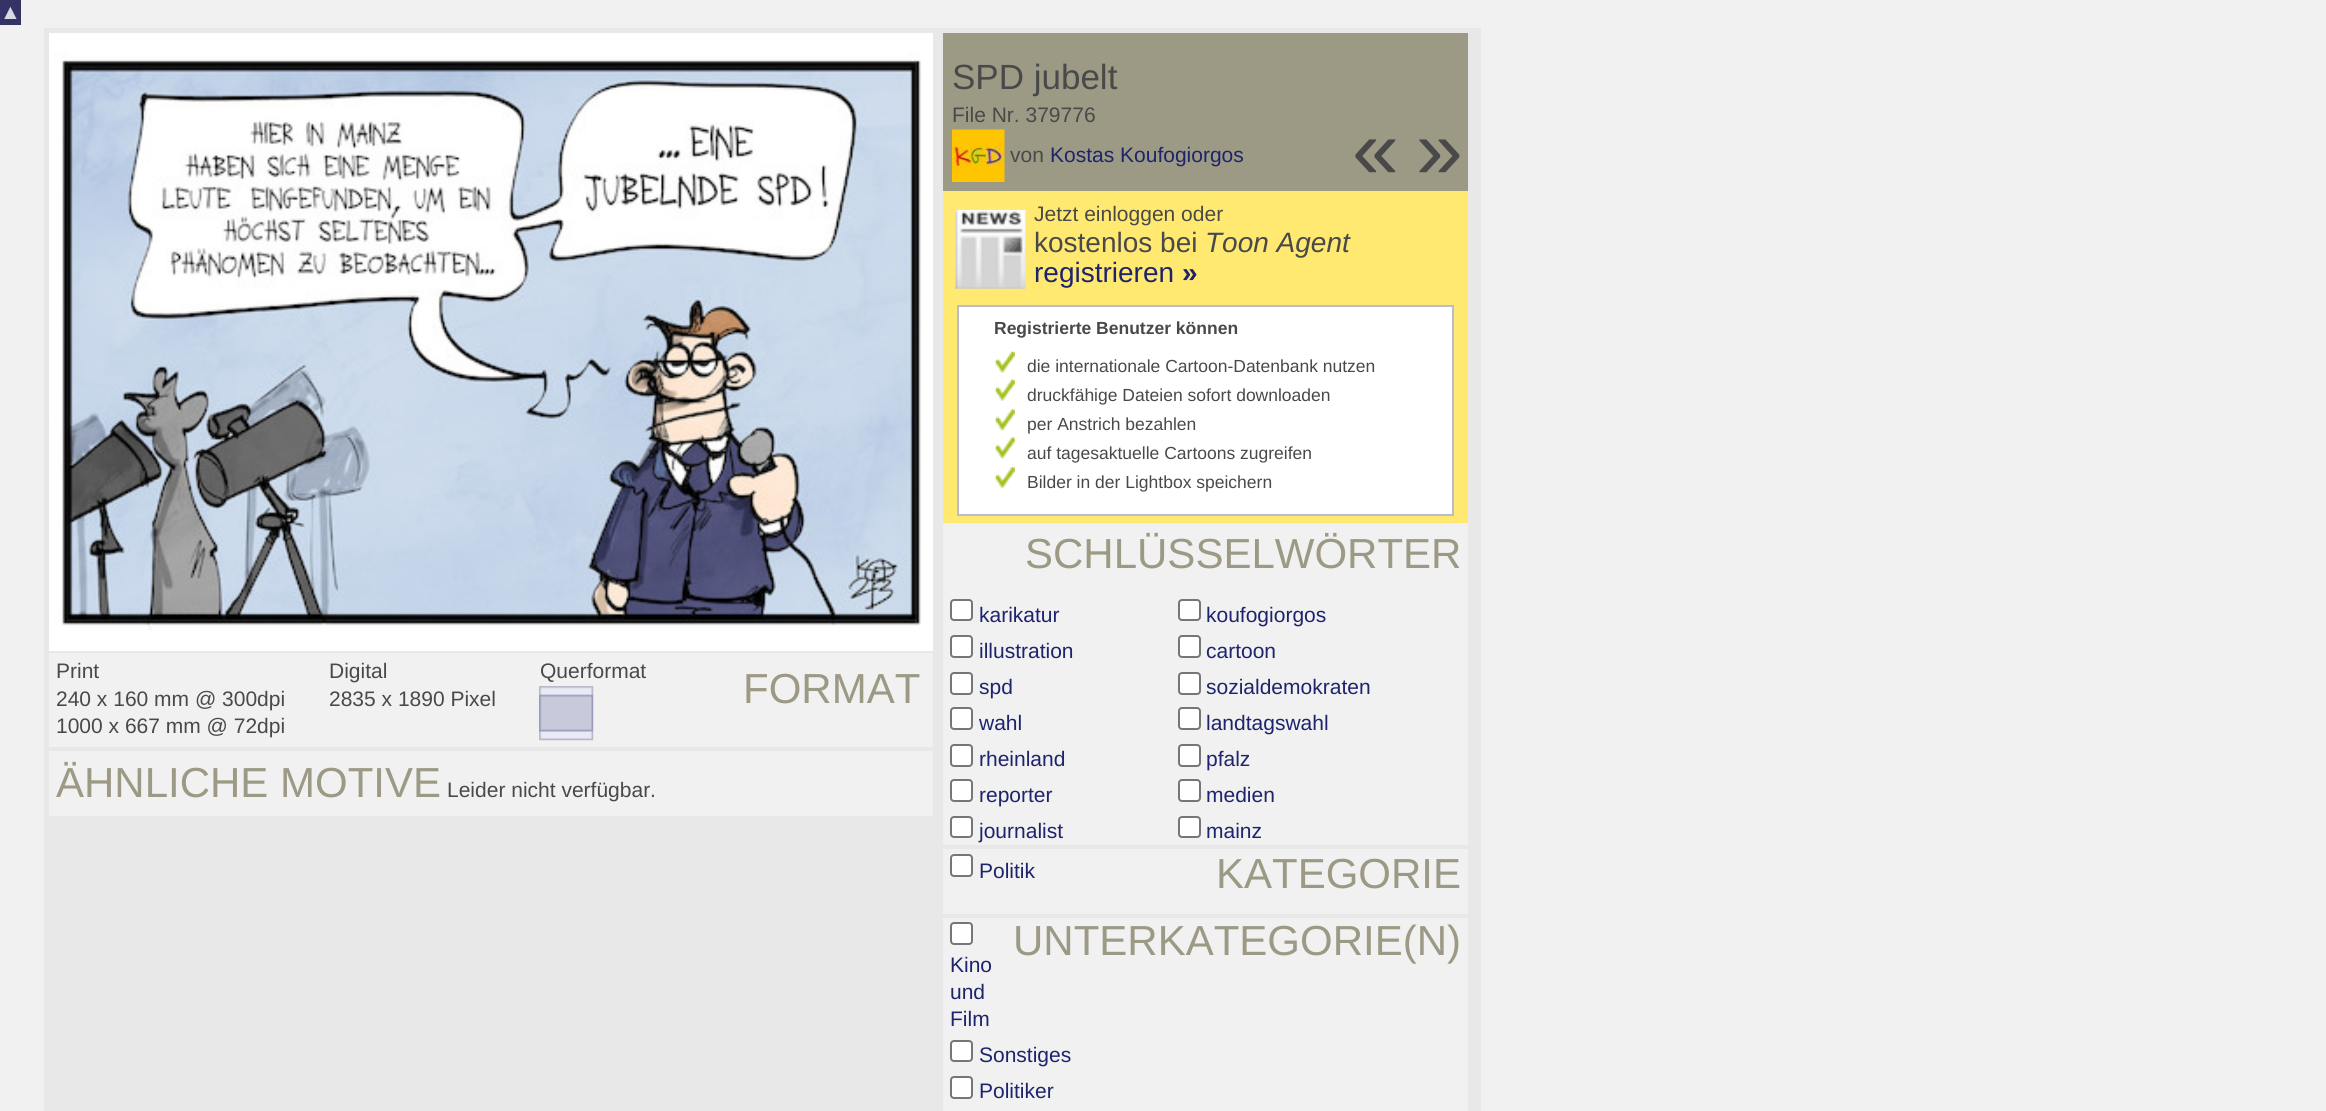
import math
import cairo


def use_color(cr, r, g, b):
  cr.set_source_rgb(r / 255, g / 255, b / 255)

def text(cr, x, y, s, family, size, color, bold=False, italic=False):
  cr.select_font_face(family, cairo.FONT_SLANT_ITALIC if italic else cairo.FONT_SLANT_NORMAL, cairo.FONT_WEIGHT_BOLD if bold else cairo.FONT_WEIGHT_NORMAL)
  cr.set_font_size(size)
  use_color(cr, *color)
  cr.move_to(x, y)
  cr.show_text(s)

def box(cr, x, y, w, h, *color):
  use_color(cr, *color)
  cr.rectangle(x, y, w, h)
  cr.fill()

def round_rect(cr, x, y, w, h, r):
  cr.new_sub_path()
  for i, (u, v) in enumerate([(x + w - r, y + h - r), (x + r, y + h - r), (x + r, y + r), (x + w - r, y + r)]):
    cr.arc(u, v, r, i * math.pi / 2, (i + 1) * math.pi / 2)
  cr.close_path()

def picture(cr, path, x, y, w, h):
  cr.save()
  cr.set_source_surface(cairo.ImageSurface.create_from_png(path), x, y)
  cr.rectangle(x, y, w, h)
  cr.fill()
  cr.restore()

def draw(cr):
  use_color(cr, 241, 241, 241)
  cr.paint()
  box(cr, 0, 0, 21, 25, 51, 51, 102)
  box(cr, 44, 28, 1437, 1083, 232, 232, 232)
  box(cr, 49, 33, 884, 618, 255, 255, 255)
  picture(cr, "img_01.png", 54, 51, 868, 580)
  box(cr, 49, 653, 884, 94, 241, 241, 241)
  picture(cr, "img_02.png", 539, 686, 55, 55)
  box(cr, 49, 751, 884, 65, 241, 241, 241)
  box(cr, 943, 33, 525, 158, 156, 153, 132)
  picture(cr, "img_03.png", 952, 129, 53, 53)
  box(cr, 943, 191, 525, 332, 255, 233, 112)
  picture(cr, "img_04.png", 955, 210, 71, 79)
  use_color(cr, 255, 255, 255)
  cr.rectangle(958, 306, 495, 209)
  cr.fill_preserve()
  use_color(cr, 185, 187, 208)
  cr.stroke()
  picture(cr, "img_05.png", 995, 351, 20, 22)
  picture(cr, "img_05.png", 995, 379, 20, 22)
  picture(cr, "img_06.png", 995, 409, 20, 22)
  picture(cr, "img_06.png", 995, 437, 20, 22)
  picture(cr, "img_07.png", 995, 467, 20, 22)
  box(cr, 943, 523, 525, 588, 241, 241, 241)
  use_color(cr, 255, 255, 255)
  round_rect(cr, 951, 600, 21, 20, 3)
  cr.fill_preserve()
  use_color(cr, 118, 118, 118)
  cr.stroke()
  use_color(cr, 255, 255, 255)
  round_rect(cr, 1179, 600, 21, 20, 3)
  cr.fill_preserve()
  use_color(cr, 118, 118, 118)
  cr.stroke()
  use_color(cr, 255, 255, 255)
  round_rect(cr, 951, 636, 21, 21, 3)
  cr.fill_preserve()
  use_color(cr, 118, 118, 118)
  cr.stroke()
  use_color(cr, 255, 255, 255)
  round_rect(cr, 1179, 636, 21, 21, 3)
  cr.fill_preserve()
  use_color(cr, 118, 118, 118)
  cr.stroke()
  use_color(cr, 255, 255, 255)
  round_rect(cr, 951, 673, 21, 21, 3)
  cr.fill_preserve()
  use_color(cr, 118, 118, 118)
  cr.stroke()
  use_color(cr, 255, 255, 255)
  round_rect(cr, 1179, 673, 21, 21, 3)
  cr.fill_preserve()
  use_color(cr, 118, 118, 118)
  cr.stroke()
  use_color(cr, 255, 255, 255)
  round_rect(cr, 951, 708, 21, 21, 3)
  cr.fill_preserve()
  use_color(cr, 118, 118, 118)
  cr.stroke()
  use_color(cr, 255, 255, 255)
  round_rect(cr, 1179, 708, 21, 21, 3)
  cr.fill_preserve()
  use_color(cr, 118, 118, 118)
  cr.stroke()
  use_color(cr, 255, 255, 255)
  round_rect(cr, 951, 745, 21, 21, 3)
  cr.fill_preserve()
  use_color(cr, 118, 118, 118)
  cr.stroke()
  use_color(cr, 255, 255, 255)
  round_rect(cr, 1179, 745, 21, 21, 3)
  cr.fill_preserve()
  use_color(cr, 118, 118, 118)
  cr.stroke()
  use_color(cr, 255, 255, 255)
  round_rect(cr, 951, 780, 21, 21, 3)
  cr.fill_preserve()
  use_color(cr, 118, 118, 118)
  cr.stroke()
  use_color(cr, 255, 255, 255)
  round_rect(cr, 1179, 780, 21, 21, 3)
  cr.fill_preserve()
  use_color(cr, 118, 118, 118)
  cr.stroke()
  use_color(cr, 255, 255, 255)
  round_rect(cr, 951, 817, 21, 20, 3)
  cr.fill_preserve()
  use_color(cr, 118, 118, 118)
  cr.stroke()
  use_color(cr, 255, 255, 255)
  round_rect(cr, 1179, 817, 21, 20, 3)
  cr.fill_preserve()
  use_color(cr, 118, 118, 118)
  cr.stroke()
  box(cr, 943, 845, 525, 4, 232, 232, 232)
  use_color(cr, 255, 255, 255)
  round_rect(cr, 951, 855, 21, 21, 3)
  cr.fill_preserve()
  use_color(cr, 118, 118, 118)
  cr.stroke()
  box(cr, 943, 914, 525, 4, 232, 232, 232)
  use_color(cr, 255, 255, 255)
  round_rect(cr, 951, 923, 21, 21, 3)
  cr.fill_preserve()
  use_color(cr, 118, 118, 118)
  cr.stroke()
  use_color(cr, 255, 255, 255)
  round_rect(cr, 951, 1041, 21, 20, 3)
  cr.fill_preserve()
  use_color(cr, 118, 118, 118)
  cr.stroke()
  use_color(cr, 255, 255, 255)
  round_rect(cr, 951, 1077, 21, 21, 3)
  cr.fill_preserve()
  use_color(cr, 118, 118, 118)
  cr.stroke()
  text(cr, 0, 19, "▲", "Liberation Sans", 21, (216, 217, 229))
  text(cr, 56, 678, "Print", "Liberation Sans", 21, (73, 73, 73))
  text(cr, 56, 706, "240 x 160 mm @ 300dpi", "Liberation Sans", 21, (73, 73, 73))
  text(cr, 56, 733, "1000 x 667 mm @ 72dpi", "Liberation Sans", 21, (73, 73, 73))
  text(cr, 329, 678, "Digital", "Liberation Sans", 21, (73, 73, 73))
  text(cr, 329, 706, "2835 x 1890 Pixel", "Liberation Sans", 21, (73, 73, 73))
  text(cr, 540, 678, "Querformat", "Liberation Sans", 21, (73, 73, 73))
  text(cr, 743, 703, "FORMAT", "Liberation Sans", 42, (156, 153, 132))
  text(cr, 56, 797, "ÄHNLICHE MOTIVE", "Liberation Sans", 42, (156, 153, 132))
  text(cr, 447, 797, "Leider nicht verfügbar.", "Liberation Sans", 21, (73, 73, 73))
  text(cr, 952, 89, "SPD jubelt", "Liberation Sans", 35, (73, 73, 73))
  text(cr, 952, 122, "File Nr. 379776", "Liberation Sans", 21, (73, 73, 73))
  text(cr, 1010, 162, "von", "Liberation Sans", 21, (73, 73, 73))
  text(cr, 1050, 162, "Kostas Koufogiorgos", "Liberation Sans", 21, (29, 36, 108))
  text(cr, 1352, 178, "«", "Liberation Sans", 84, (73, 73, 73))
  text(cr, 1416, 178, "»", "Liberation Sans", 84, (73, 73, 73))
  text(cr, 1034, 221, "Jetzt einloggen oder", "Liberation Sans", 21, (73, 73, 73))
  text(cr, 1034, 252, "kostenlos bei", "Liberation Sans", 28, (73, 73, 73))
  text(cr, 1205, 252, "Toon Agent", "Liberation Sans", 28, (73, 73, 73), italic=True)
  text(cr, 1034, 282, "registrieren", "Liberation Sans", 28, (29, 36, 108))
  text(cr, 1182, 282, "»", "Liberation Sans", 28, (29, 36, 108), bold=True)
  text(cr, 994, 334, "Registrierte Benutzer können", "Liberation Sans", 17.5, (73, 73, 73), bold=True)
  text(cr, 1027, 372, "die internationale Cartoon-Datenbank nutzen", "Liberation Sans", 17.5, (73, 73, 73))
  text(cr, 1027, 401, "druckfähige Dateien sofort downloaden", "Liberation Sans", 17.5, (73, 73, 73))
  text(cr, 1027, 430, "per Anstrich bezahlen", "Liberation Sans", 17.5, (73, 73, 73))
  text(cr, 1027, 459, "auf tagesaktuelle Cartoons zugreifen", "Liberation Sans", 17.5, (73, 73, 73))
  text(cr, 1027, 488, "Bilder in der Lightbox speichern", "Liberation Sans", 17.5, (73, 73, 73))
  text(cr, 1025, 568, "SCHLÜSSELWÖRTER", "Liberation Sans", 42, (156, 153, 132))
  text(cr, 979, 622, "karikatur", "Liberation Sans", 21, (29, 36, 108))
  text(cr, 1206, 622, "koufogiorgos", "Liberation Sans", 21, (29, 36, 108))
  text(cr, 979, 658, "illustration", "Liberation Sans", 21, (29, 36, 108))
  text(cr, 1206, 658, "cartoon", "Liberation Sans", 21, (29, 36, 108))
  text(cr, 979, 694, "spd", "Liberation Sans", 21, (29, 36, 108))
  text(cr, 1206, 694, "sozialdemokraten", "Liberation Sans", 21, (29, 36, 108))
  text(cr, 979, 730, "wahl", "Liberation Sans", 21, (29, 36, 108))
  text(cr, 1206, 730, "landtagswahl", "Liberation Sans", 21, (29, 36, 108))
  text(cr, 979, 766, "rheinland", "Liberation Sans", 21, (29, 36, 108))
  text(cr, 1206, 766, "pfalz", "Liberation Sans", 21, (29, 36, 108))
  text(cr, 979, 802, "reporter", "Liberation Sans", 21, (29, 36, 108))
  text(cr, 1206, 802, "medien", "Liberation Sans", 21, (29, 36, 108))
  text(cr, 979, 838, "journalist", "Liberation Sans", 21, (29, 36, 108))
  text(cr, 1206, 838, "mainz", "Liberation Sans", 21, (29, 36, 108))
  text(cr, 979, 878, "Politik", "Liberation Sans", 21, (29, 36, 108))
  text(cr, 1216, 888, "KATEGORIE", "Liberation Sans", 42, (156, 153, 132))
  text(cr, 1013, 955, "UNTERKATEGORIE(N)", "Liberation Sans", 42, (156, 153, 132))
  text(cr, 950, 972, "Kino", "Liberation Sans", 21, (29, 36, 108))
  text(cr, 950, 999, "und", "Liberation Sans", 21, (29, 36, 108))
  text(cr, 950, 1026, "Film", "Liberation Sans", 21, (29, 36, 108))
  text(cr, 979, 1062, "Sonstiges", "Liberation Sans", 21, (29, 36, 108))
  text(cr, 979, 1098, "Politiker", "Liberation Sans", 21, (29, 36, 108))


surface = cairo.ImageSurface(cairo.FORMAT_RGB24, 2326, 1111)
cr = cairo.Context(surface)
options = cairo.FontOptions()
options.set_hint_metrics(cairo.HINT_METRICS_OFF)
options.set_hint_style(cairo.HINT_STYLE_NONE)
cr.set_font_options(options)
cr.set_miter_limit(4)
draw(cr)
surface.write_to_png("out.png")
